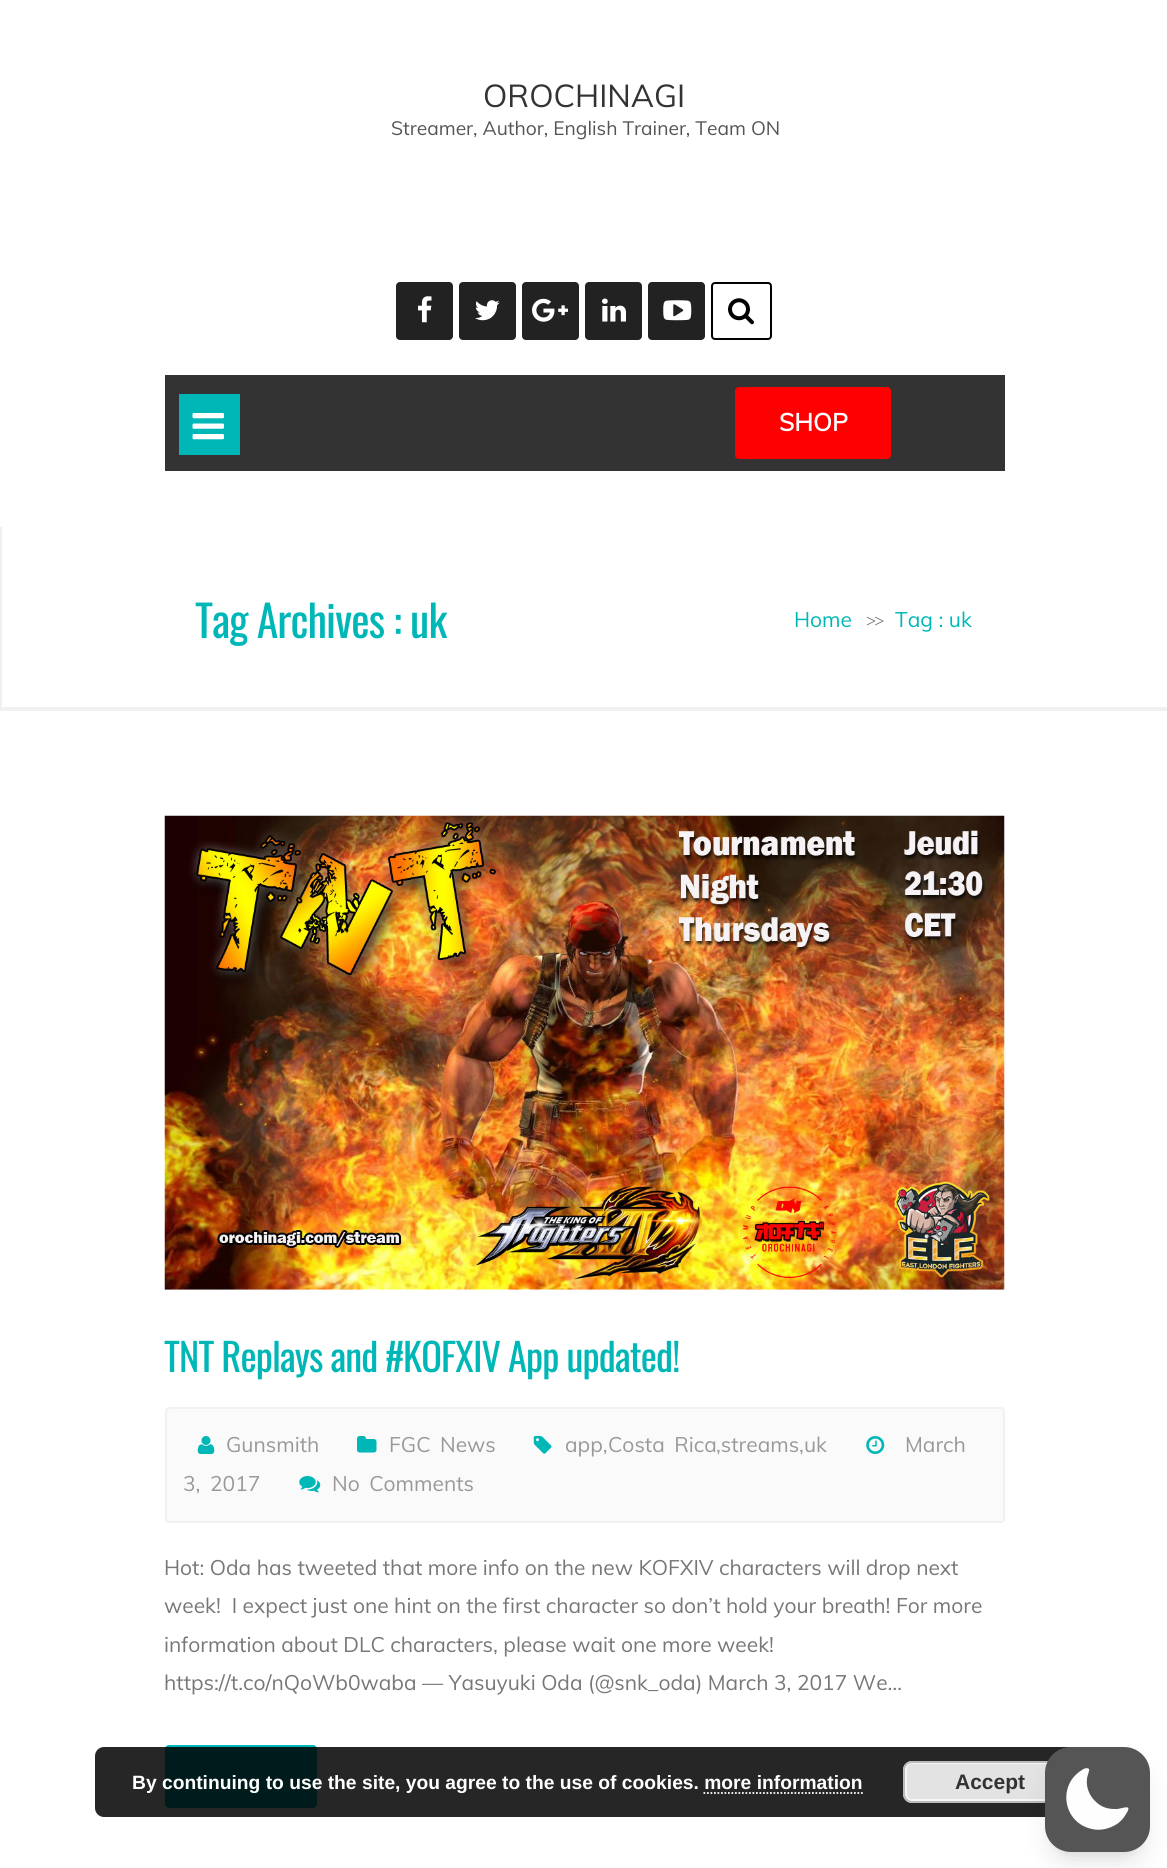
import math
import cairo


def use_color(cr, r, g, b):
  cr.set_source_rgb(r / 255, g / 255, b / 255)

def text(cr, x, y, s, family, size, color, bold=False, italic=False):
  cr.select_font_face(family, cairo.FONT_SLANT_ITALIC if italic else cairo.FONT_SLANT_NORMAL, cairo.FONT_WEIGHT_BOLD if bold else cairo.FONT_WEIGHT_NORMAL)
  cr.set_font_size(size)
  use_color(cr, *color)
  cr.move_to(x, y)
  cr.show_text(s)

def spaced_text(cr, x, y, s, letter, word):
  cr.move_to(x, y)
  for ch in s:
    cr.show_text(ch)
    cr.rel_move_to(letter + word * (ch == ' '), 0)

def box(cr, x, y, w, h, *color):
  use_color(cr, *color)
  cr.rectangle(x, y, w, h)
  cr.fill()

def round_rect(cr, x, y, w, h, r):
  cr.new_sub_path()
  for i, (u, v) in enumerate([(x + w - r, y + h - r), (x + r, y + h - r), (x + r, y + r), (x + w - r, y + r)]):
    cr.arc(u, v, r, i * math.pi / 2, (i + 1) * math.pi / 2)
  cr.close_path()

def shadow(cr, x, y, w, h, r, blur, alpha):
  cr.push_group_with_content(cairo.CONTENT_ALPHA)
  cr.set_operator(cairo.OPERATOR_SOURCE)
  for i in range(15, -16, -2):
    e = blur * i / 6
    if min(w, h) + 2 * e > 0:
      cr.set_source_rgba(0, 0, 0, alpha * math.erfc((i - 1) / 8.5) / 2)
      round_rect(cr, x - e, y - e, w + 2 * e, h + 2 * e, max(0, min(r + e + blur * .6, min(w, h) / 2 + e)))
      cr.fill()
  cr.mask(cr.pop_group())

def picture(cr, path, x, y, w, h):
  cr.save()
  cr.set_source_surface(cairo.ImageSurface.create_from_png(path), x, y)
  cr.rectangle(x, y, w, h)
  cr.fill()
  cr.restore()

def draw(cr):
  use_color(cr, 255, 255, 255)
  cr.paint()
  use_color(cr, 34, 34, 34)
  round_rect(cr, 396, 282, 57, 58, 4)
  cr.fill()
  picture(cr, "img_01.png", 418, 296, 14, 27)
  round_rect(cr, 459, 282, 57, 58, 4)
  cr.fill()
  picture(cr, "img_02.png", 475, 300, 25, 21)
  round_rect(cr, 522, 282, 57, 58, 4)
  cr.fill()
  picture(cr, "img_03.png", 532, 298, 36, 24)
  round_rect(cr, 585, 282, 57, 58, 4)
  cr.fill()
  picture(cr, "img_04.png", 602, 298, 24, 24)
  round_rect(cr, 648, 282, 57, 58, 4)
  cr.fill()
  picture(cr, "img_05.png", 663, 300, 29, 21)
  round_rect(cr, 712, 283, 59, 56, 3)
  use_color(cr, 0, 0, 0)
  cr.stroke()
  picture(cr, "img_06.png", 728, 298, 26, 27)
  box(cr, 165, 375, 840, 96, 51, 51, 51)
  box(cr, 179, 394, 61, 61, 0, 183, 183)
  picture(cr, "img_07.png", 192, 413, 32, 27)
  use_color(cr, 255, 0, 0)
  round_rect(cr, 735, 387, 156, 72, 4)
  cr.fill()
  cr.save()
  cr.rectangle(0, 527, 1167, 184)
  cr.clip()
  use_color(cr, 240, 240, 240)
  cr.set_fill_rule(cairo.FILL_RULE_EVEN_ODD)
  cr.new_path()
  cr.move_to(-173, 354)
  cr.line_to(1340, 354)
  cr.line_to(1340, 884)
  cr.line_to(-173, 884)
  cr.close_path()
  cr.move_to(2, 523)
  cr.line_to(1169, 523)
  cr.line_to(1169, 707)
  cr.line_to(2, 707)
  cr.close_path()
  cr.fill()
  cr.restore()
  picture(cr, "img_08.png", 164, 815, 841, 475)
  use_color(cr, 250, 250, 250)
  round_rect(cr, 166, 1408, 838, 114, 3)
  cr.fill_preserve()
  use_color(cr, 241, 241, 241)
  cr.stroke()
  picture(cr, "img_09.png", 866, 1436, 19, 18)
  picture(cr, "img_10.png", 197, 1436, 18, 18)
  picture(cr, "img_11.png", 357, 1436, 20, 17)
  picture(cr, "img_12.png", 533, 1436, 19, 18)
  picture(cr, "img_13.png", 299, 1476, 22, 17)
  use_color(cr, 0, 183, 183)
  round_rect(cr, 165, 1745, 152, 63, 4)
  cr.fill()
  cr.set_source_rgba(0, 0, 0, 0.85)
  round_rect(cr, 95, 1747, 1020, 70, 9)
  cr.fill()
  use_color(cr, 227, 227, 227)
  round_rect(cr, 903, 1761, 175, 42, 9)
  cr.fill()
  round_rect(cr, 906, 1763, 169, 37, 6)
  use_color(cr, 246, 246, 246)
  cr.stroke()
  round_rect(cr, 904, 1762, 173, 40, 8)
  use_color(cr, 187, 187, 187)
  cr.stroke()
  cr.new_path()
  cr.move_to(703.5, 1793)
  cr.line_to(863, 1793)
  use_color(cr, 255, 255, 255)
  cr.set_line_width(1.8)
  cr.set_dash([1.75, 1.75])
  cr.stroke()
  use_color(cr, 0, 0, 0)
  shadow(cr, 1052, 1761, 91, 91, 19, 5, 0.1)
  shadow(cr, 1050, 1769, 95, 95, 21, 13, 0.1)
  use_color(cr, 85, 85, 85)
  round_rect(cr, 1045, 1747, 105, 105, 26)
  cr.fill()
  use_color(cr, 254, 254, 254)
  cr.set_fill_rule(cairo.FILL_RULE_EVEN_ODD)
  cr.new_path()
  cr.move_to(1089, 1769)
  cr.curve_to(1090, 1770, 1087, 1776, 1087, 1779)
  cr.curve_to(1086, 1787, 1089, 1795, 1095, 1801)
  cr.curve_to(1101, 1807, 1107, 1809, 1115, 1809)
  cr.curve_to(1120, 1810, 1134, 1802, 1126, 1814)
  cr.curve_to(1124, 1818, 1120, 1822, 1117, 1824)
  cr.curve_to(1109, 1829, 1100, 1831, 1092, 1829)
  cr.curve_to(1063, 1823, 1057, 1785, 1082, 1770)
  cr.curve_to(1083, 1769, 1087, 1767, 1089, 1769)
  cr.close_path()
  cr.fill()
  text(cr, 483, 107, "OROCHINAGI", "Muli", 31.5, (51, 51, 51))
  text(cr, 391, 135, "Streamer, Author, English Trainer, Team ON", "Muli", 19.25, (85, 85, 85))
  text(cr, 779, 431, "SHOP", "Muli", 24.5, (255, 255, 255), bold=True)
  cr.select_font_face("Oswald")
  cr.set_font_size(43.75)
  use_color(cr, 0, 183, 183)
  spaced_text(cr, 195, 638, "Tag Archives : uk", -0.9, 0)
  text(cr, 794, 627, "Home", "Muli", 21, (0, 183, 183))
  cr.select_font_face("Liberation Serif")
  cr.set_font_size(18)
  use_color(cr, 102, 102, 102)
  spaced_text(cr, 866, 627, ">>", -2, 0)
  text(cr, 895, 627, "Tag : uk", "Muli", 21, (0, 183, 183))
  cr.select_font_face("Oswald")
  cr.set_font_size(38.5)
  spaced_text(cr, 164, 1372, "TNT Replays and #KOFXIV App updated!", -0.9, 0)
  text(cr, 905, 1452, "March", "Muli", 21, (153, 153, 153))
  spaced_text(cr, 183, 1491, "3, 2017", 0, 4)
  text(cr, 226, 1452, "Gunsmith", "Muli", 21, (153, 153, 153))
  spaced_text(cr, 389, 1452, "FGC News", 0, 4)
  text(cr, 565, 1452, "app,", "Muli", 21, (153, 153, 153))
  spaced_text(cr, 608, 1452, "Costa Rica", 0, 4)
  text(cr, 716, 1452, ",streams,uk", "Muli", 21, (153, 153, 153))
  spaced_text(cr, 332, 1491, "No Comments", 0, 4)
  text(cr, 164, 1575, "Hot: Oda has tweeted that more info on the new KOFXIV characters will drop next", "Muli", 21, (119, 119, 119))
  text(cr, 164, 1613, "week!  I expect just one hint on the first character so don’t hold your breath! For more", "Muli", 21, (119, 119, 119))
  text(cr, 164, 1652, "information about DLC characters, please wait one more week!", "Muli", 21, (119, 119, 119))
  text(cr, 164, 1690, "https://t.co/nQoWb0waba — Yasuyuki Oda (@snk_oda) March 3, 2017 We…", "Muli", 21, (119, 119, 119))
  text(cr, 132, 1789, "By continuing to use the site, you agree to the use of cookies. more information", "Liberation Sans", 19.25, (255, 255, 255), bold=True)
  text(cr, 955, 1789, "Accept", "Liberation Sans", 21, (51, 51, 51), bold=True)


surface = cairo.ImageSurface(cairo.FORMAT_RGB24, 1167, 1868)
cr = cairo.Context(surface)
options = cairo.FontOptions()
options.set_hint_metrics(cairo.HINT_METRICS_OFF)
options.set_hint_style(cairo.HINT_STYLE_NONE)
cr.set_font_options(options)
cr.set_miter_limit(4)
draw(cr)
surface.write_to_png("out.png")
